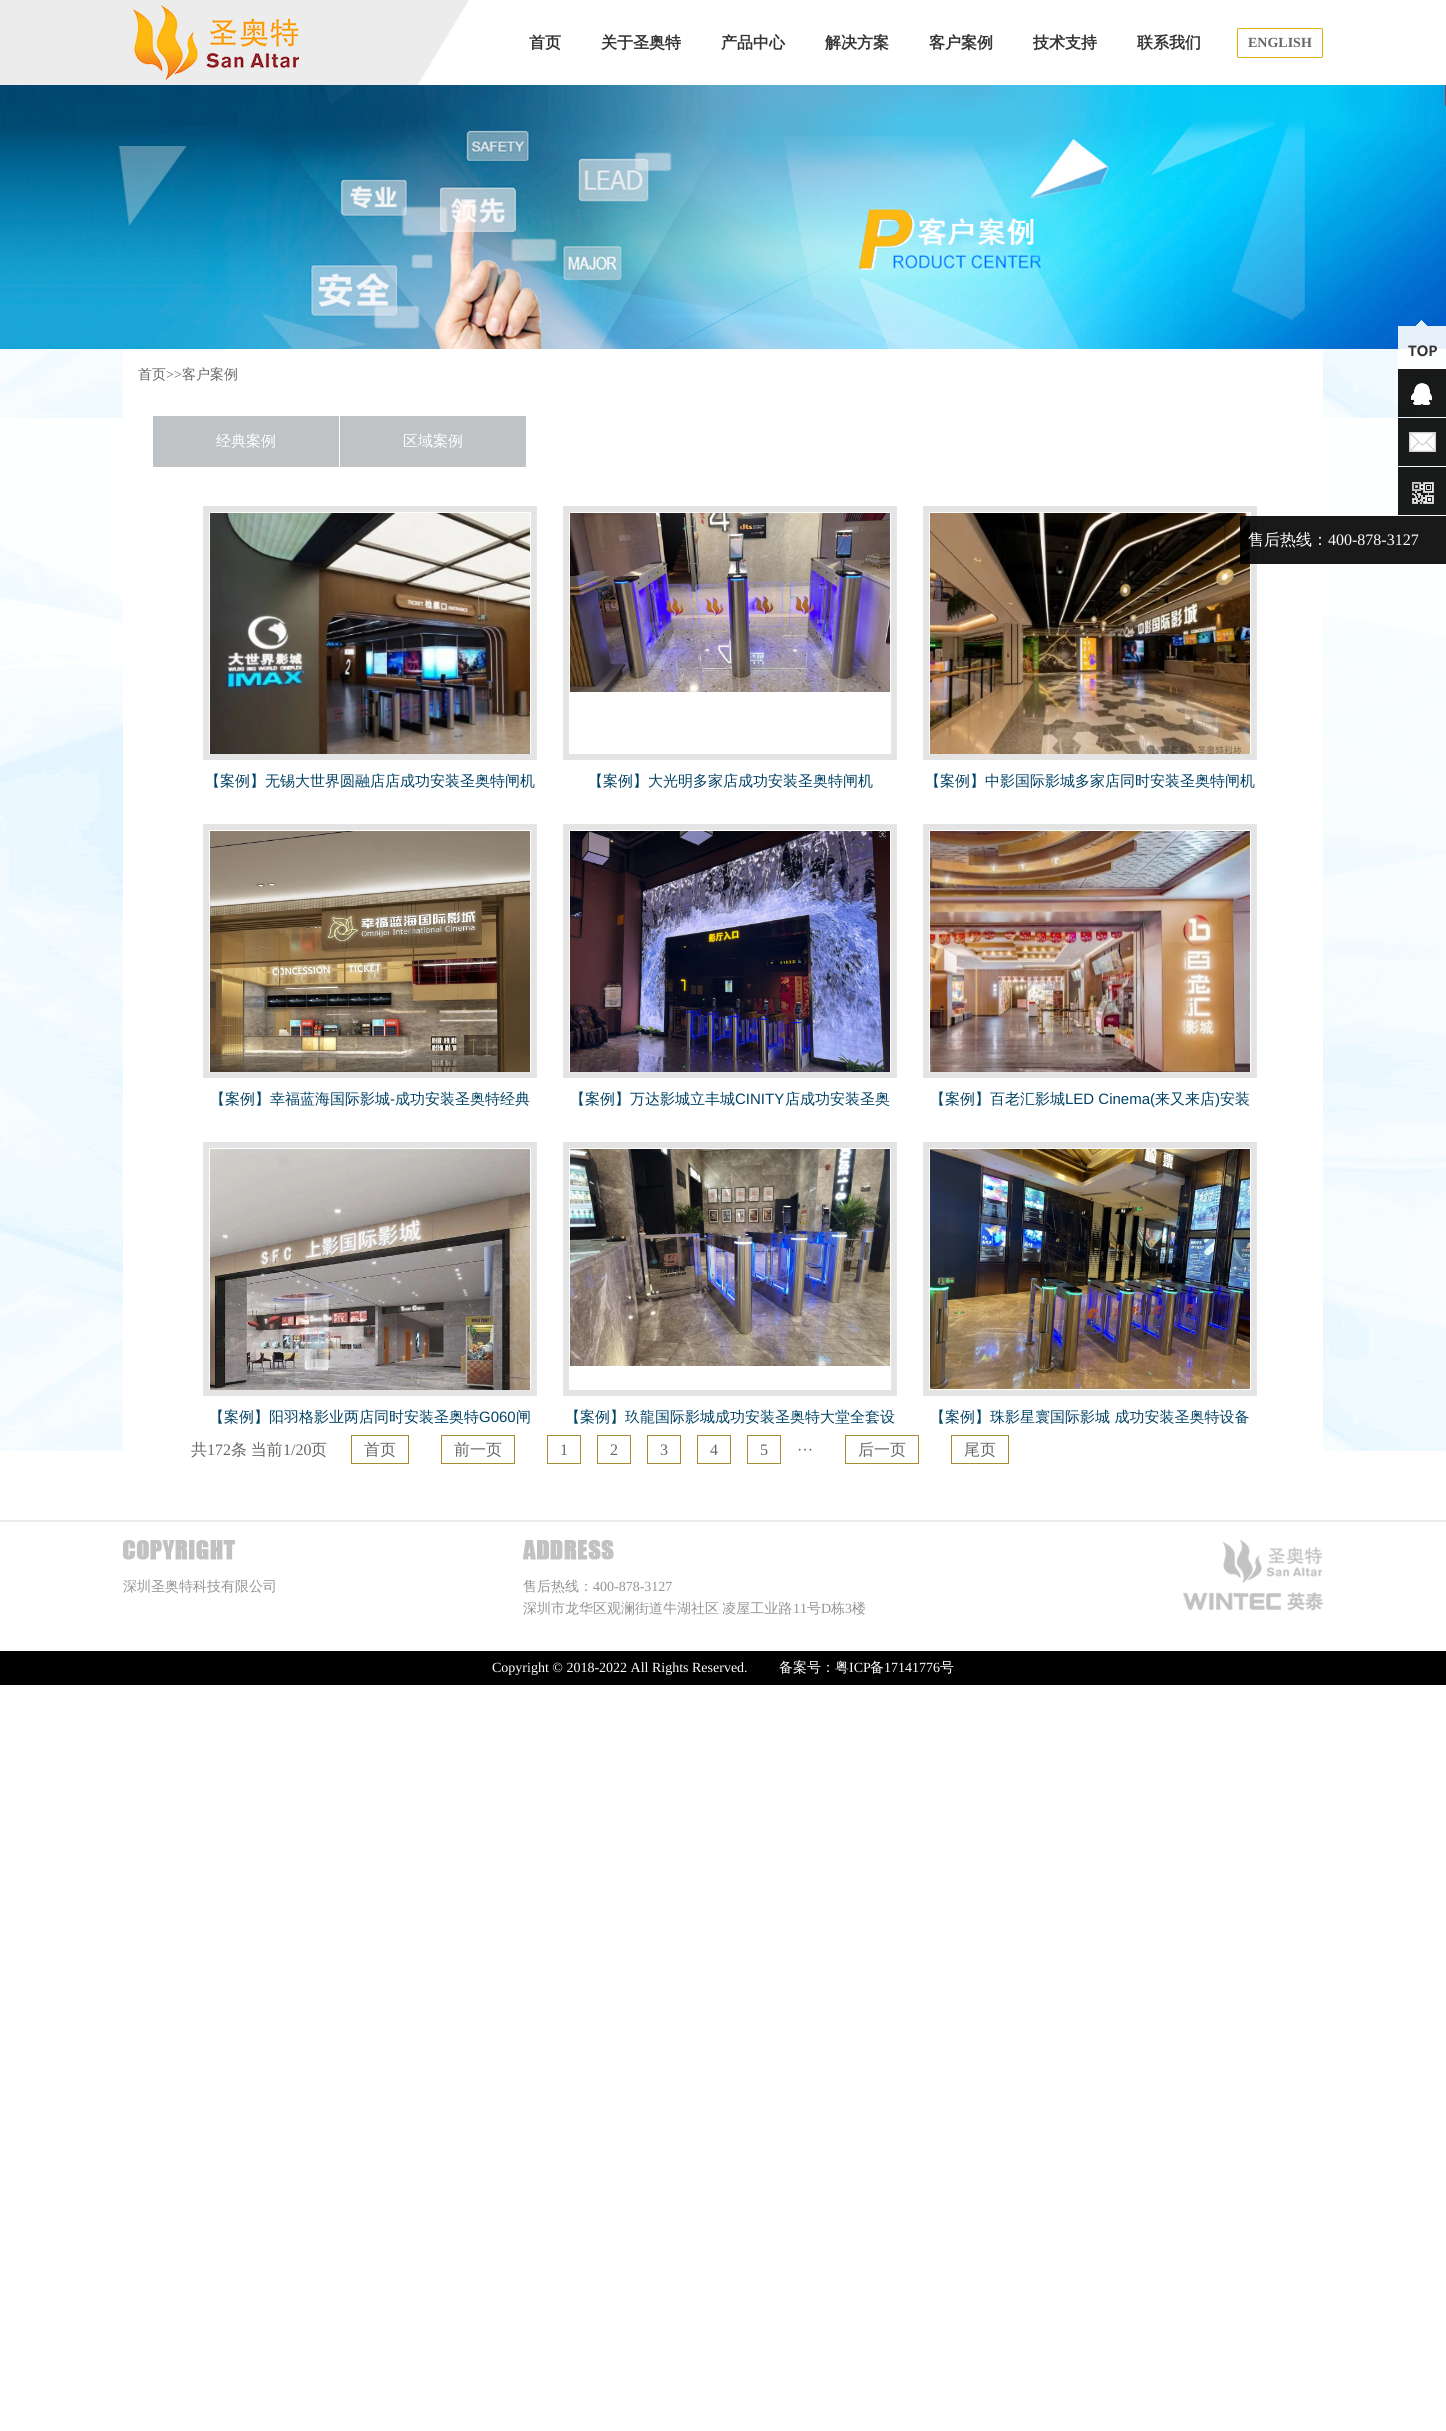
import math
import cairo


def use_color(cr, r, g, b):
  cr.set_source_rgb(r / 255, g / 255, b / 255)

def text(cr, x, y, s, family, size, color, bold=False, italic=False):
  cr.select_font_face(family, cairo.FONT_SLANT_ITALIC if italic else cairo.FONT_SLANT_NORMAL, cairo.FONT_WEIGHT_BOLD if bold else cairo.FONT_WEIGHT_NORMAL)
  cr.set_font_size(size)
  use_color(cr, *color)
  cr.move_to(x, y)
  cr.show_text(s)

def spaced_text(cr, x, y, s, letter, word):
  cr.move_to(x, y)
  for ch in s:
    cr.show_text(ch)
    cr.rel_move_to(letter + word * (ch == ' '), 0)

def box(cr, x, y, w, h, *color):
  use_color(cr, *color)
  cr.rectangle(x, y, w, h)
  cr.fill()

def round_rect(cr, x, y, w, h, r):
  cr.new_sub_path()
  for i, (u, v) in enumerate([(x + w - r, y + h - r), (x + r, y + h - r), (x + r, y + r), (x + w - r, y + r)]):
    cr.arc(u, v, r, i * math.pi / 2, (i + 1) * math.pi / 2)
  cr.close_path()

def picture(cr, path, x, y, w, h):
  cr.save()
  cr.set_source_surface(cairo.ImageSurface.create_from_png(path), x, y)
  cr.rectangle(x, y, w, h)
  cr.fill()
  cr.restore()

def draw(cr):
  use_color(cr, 255, 255, 255)
  cr.paint()
  picture(cr, "img_01.png", 0, 0, 469, 85)
  picture(cr, "img_02.png", 133, 5, 166, 75)
  round_rect(cr, 1237.5, 28.5, 85, 29, 1.5)
  use_color(cr, 220, 175, 12)
  cr.set_line_width(1)
  cr.stroke()
  picture(cr, "img_03.png", 0, 85, 1446, 264)
  picture(cr, "img_04.png", 0, 349, 1446, 1102)
  box(cr, 123, 349, 1200, 1102, 255, 255, 255)
  box(cr, 153, 416, 186, 51, 191, 195, 198)
  box(cr, 340, 416, 186, 51, 191, 195, 198)
  cr.rectangle(206, 509, 328, 248)
  use_color(cr, 228, 228, 228)
  cr.set_line_width(6)
  cr.stroke()
  picture(cr, "img_05.png", 210, 513, 320, 241)
  cr.rectangle(566, 509, 328, 248)
  cr.stroke()
  picture(cr, "img_06.png", 570, 513, 320, 179)
  cr.rectangle(926, 509, 328, 248)
  cr.stroke()
  picture(cr, "img_07.png", 930, 513, 320, 241)
  cr.rectangle(206, 827, 328, 248)
  cr.stroke()
  picture(cr, "img_08.png", 210, 831, 320, 241)
  cr.rectangle(566, 827, 328, 248)
  cr.stroke()
  picture(cr, "img_09.png", 570, 831, 320, 241)
  cr.rectangle(926, 827, 328, 248)
  cr.stroke()
  picture(cr, "img_10.png", 930, 831, 320, 241)
  cr.rectangle(206, 1145, 328, 248)
  cr.stroke()
  picture(cr, "img_11.png", 210, 1149, 320, 241)
  cr.rectangle(566, 1145, 328, 248)
  cr.stroke()
  picture(cr, "img_12.png", 570, 1149, 320, 217)
  cr.rectangle(926, 1145, 328, 248)
  cr.stroke()
  picture(cr, "img_13.png", 930, 1149, 320, 240)
  cr.rectangle(351.5, 1435.5, 57, 28)
  use_color(cr, 165, 140, 50)
  cr.set_line_width(1)
  cr.stroke()
  cr.rectangle(441.5, 1435.5, 73, 28)
  cr.stroke()
  cr.rectangle(547.5, 1435.5, 33, 28)
  cr.stroke()
  cr.rectangle(597.5, 1435.5, 33, 28)
  cr.stroke()
  cr.rectangle(647.5, 1435.5, 33, 28)
  cr.stroke()
  cr.rectangle(697.5, 1435.5, 33, 28)
  cr.stroke()
  cr.rectangle(747.5, 1435.5, 33, 28)
  cr.stroke()
  cr.rectangle(845.5, 1435.5, 73, 28)
  cr.stroke()
  cr.rectangle(951.5, 1435.5, 57, 28)
  cr.stroke()
  picture(cr, "img_14.png", 1416, 320, 11, 6)
  picture(cr, "img_15.png", 1398, 326, 48, 48)
  cr.set_source_rgba(0, 0, 0, 0.9)
  cr.rectangle(1398, 369, 48, 48)
  cr.fill()
  picture(cr, "img_16.png", 1411, 383, 21, 22)
  box(cr, 1398, 418, 48, 48, 25, 26, 26)
  picture(cr, "img_17.png", 1409, 432, 27, 20)
  box(cr, 1398, 467, 48, 48, 25, 26, 26)
  picture(cr, "img_18.png", 1412, 482, 22, 22)
  cr.set_source_rgba(0, 0, 0, 0.9)
  cr.rectangle(1240, 516, 206, 48)
  cr.fill()
  box(cr, 0, 1520, 1446, 2, 235, 235, 235)
  picture(cr, "img_19.png", 1183, 1540, 140, 71)
  picture(cr, "img_20.png", 123, 1540, 112, 20)
  picture(cr, "img_21.png", 523, 1540, 91, 20)
  box(cr, 0, 1651, 1446, 34, 0, 0, 0)
  text(cr, 529, 48, "首页", "WenQuanYi Zen Hei", 16, (51, 51, 51), bold=True)
  text(cr, 601, 48, "关于圣奥特", "WenQuanYi Zen Hei", 16, (51, 51, 51), bold=True)
  text(cr, 721, 48, "产品中心", "WenQuanYi Zen Hei", 16, (51, 51, 51), bold=True)
  text(cr, 825, 48, "解决方案", "WenQuanYi Zen Hei", 16, (51, 51, 51), bold=True)
  text(cr, 929, 48, "客户案例", "WenQuanYi Zen Hei", 16, (51, 51, 51), bold=True)
  text(cr, 1033, 48, "技术支持", "WenQuanYi Zen Hei", 16, (51, 51, 51), bold=True)
  text(cr, 1137, 48, "联系我们", "WenQuanYi Zen Hei", 16, (51, 51, 51), bold=True)
  text(cr, 1248, 47, "ENGLISH", "Liberation Serif", 14, (102, 102, 102), bold=True)
  text(cr, 138, 379, "首页", "WenQuanYi Zen Hei Medium", 14, (102, 102, 102))
  text(cr, 166, 379, ">>", "Liberation Serif", 14, (102, 102, 102))
  text(cr, 182, 379, "客户案例", "WenQuanYi Zen Hei Medium", 14, (102, 102, 102))
  text(cr, 216, 446, "经典案例", "WenQuanYi Zen Hei Medium", 15, (255, 255, 255))
  text(cr, 403, 446, "区域案例", "WenQuanYi Zen Hei Medium", 15, (255, 255, 255))
  text(cr, 205, 786, "【案例】无锡大世界圆融店店成功安装圣奥特闸机", "WenQuanYi Zen Hei Medium", 15, (2, 66, 101))
  text(cr, 588, 786, "【案例】大光明多家店成功安装圣奥特闸机", "WenQuanYi Zen Hei Medium", 15, (2, 66, 101))
  text(cr, 925, 786, "【案例】中影国际影城多家店同时安装圣奥特闸机", "WenQuanYi Zen Hei Medium", 15, (2, 66, 101))
  text(cr, 210, 1104, "【案例】幸福蓝海国际影城", "WenQuanYi Zen Hei Medium", 15, (2, 66, 101))
  text(cr, 390, 1104, "-", "Liberation Sans", 15, (2, 66, 101))
  text(cr, 395, 1104, "成功安装圣奥特经典", "WenQuanYi Zen Hei Medium", 15, (2, 66, 101))
  text(cr, 570, 1104, "【案例】万达影城立丰城", "WenQuanYi Zen Hei Medium", 15, (2, 66, 101))
  text(cr, 735, 1104, "CINITY", "Liberation Sans", 15, (2, 66, 101))
  text(cr, 785, 1104, "店成功安装圣奥", "WenQuanYi Zen Hei Medium", 15, (2, 66, 101))
  text(cr, 930, 1104, "【案例】百老汇影城", "WenQuanYi Zen Hei Medium", 15, (2, 66, 101))
  text(cr, 1065, 1104, "LED Cinema(", "Liberation Sans", 15, (2, 66, 101))
  text(cr, 1155, 1104, "来又来店", "WenQuanYi Zen Hei Medium", 15, (2, 66, 101))
  text(cr, 1215, 1104, ")", "Liberation Sans", 15, (2, 66, 101))
  text(cr, 1220, 1104, "安装", "WenQuanYi Zen Hei Medium", 15, (2, 66, 101))
  text(cr, 209, 1422, "【案例】阳羽格影业两店同时安装圣奥特", "WenQuanYi Zen Hei Medium", 15, (2, 66, 101))
  text(cr, 479, 1422, "G060", "Liberation Sans", 15, (2, 66, 101))
  text(cr, 516, 1422, "闸", "WenQuanYi Zen Hei Medium", 15, (2, 66, 101))
  text(cr, 565, 1422, "【案例】玖龍国际影城成功安装圣奥特大堂全套设", "WenQuanYi Zen Hei Medium", 15, (2, 66, 101))
  text(cr, 930, 1422, "【案例】珠影星寰国际影城 成功安装圣奥特设备", "WenQuanYi Zen Hei Medium", 15, (2, 66, 101))
  text(cr, 191, 1455, "共", "WenQuanYi Zen Hei Medium", 16, (102, 102, 102))
  text(cr, 207, 1455, "172", "Liberation Serif", 16, (102, 102, 102))
  cr.select_font_face("WenQuanYi Zen Hei Medium")
  spaced_text(cr, 231, 1455, "条 当前", 0, -1)
  text(cr, 283, 1455, "1/20", "Liberation Serif", 16, (102, 102, 102))
  text(cr, 311, 1455, "页", "WenQuanYi Zen Hei Medium", 16, (102, 102, 102))
  text(cr, 364, 1455, "首页", "WenQuanYi Zen Hei Medium", 16, (102, 102, 102))
  text(cr, 454, 1455, "前一页", "WenQuanYi Zen Hei Medium", 16, (102, 102, 102))
  text(cr, 560, 1455, "1", "Liberation Serif", 16, (102, 102, 102))
  text(cr, 610, 1455, "2", "Liberation Serif", 16, (102, 102, 102))
  text(cr, 660, 1455, "3", "Liberation Serif", 16, (102, 102, 102))
  text(cr, 710, 1455, "4", "Liberation Serif", 16, (102, 102, 102))
  text(cr, 760, 1455, "5", "Liberation Serif", 16, (102, 102, 102))
  text(cr, 797, 1455, "···", "Liberation Serif", 16, (102, 102, 102))
  text(cr, 858, 1455, "后一页", "WenQuanYi Zen Hei Medium", 16, (102, 102, 102))
  text(cr, 964, 1455, "尾页", "WenQuanYi Zen Hei Medium", 16, (102, 102, 102))
  text(cr, 1248, 545, "售后热线：", "WenQuanYi Zen Hei Medium", 16, (255, 255, 255))
  text(cr, 1328, 545, "400-878-3127", "Liberation Serif", 16, (255, 255, 255))
  text(cr, 123, 1591, "深圳圣奥特科技有限公司", "WenQuanYi Zen Hei Medium", 14, (148, 148, 148))
  text(cr, 523, 1591, "售后热线：", "WenQuanYi Zen Hei Medium", 14, (148, 148, 148))
  text(cr, 593, 1591, "400-878-3127", "Liberation Serif", 14, (148, 148, 148))
  cr.select_font_face("WenQuanYi Zen Hei Medium")
  spaced_text(cr, 523, 1613, "深圳市龙华区观澜街道牛湖社区 凌屋工业路", 0, -1)
  text(cr, 793, 1613, "11", "Liberation Serif", 14, (148, 148, 148))
  text(cr, 807, 1613, "号", "WenQuanYi Zen Hei Medium", 14, (148, 148, 148))
  text(cr, 821, 1613, "D", "Liberation Serif", 14, (148, 148, 148))
  text(cr, 831, 1613, "栋", "WenQuanYi Zen Hei Medium", 14, (148, 148, 148))
  text(cr, 845, 1613, "3", "Liberation Serif", 14, (148, 148, 148))
  text(cr, 852, 1613, "楼", "WenQuanYi Zen Hei Medium", 14, (148, 148, 148))
  text(cr, 492, 1672, "Copyright © 2018-2022 All Rights Reserved.", "Liberation Serif", 14, (255, 255, 255))
  text(cr, 779, 1672, "备案号：粤", "WenQuanYi Zen Hei Medium", 14, (255, 255, 255))
  text(cr, 849, 1672, "ICP", "Liberation Serif", 14, (255, 255, 255))
  text(cr, 870, 1672, "备", "WenQuanYi Zen Hei Medium", 14, (255, 255, 255))
  text(cr, 884, 1672, "17141776", "Liberation Serif", 14, (255, 255, 255))
  text(cr, 940, 1672, "号", "WenQuanYi Zen Hei Medium", 14, (255, 255, 255))


surface = cairo.ImageSurface(cairo.FORMAT_RGB24, 1446, 2431)
cr = cairo.Context(surface)
options = cairo.FontOptions()
options.set_hint_metrics(cairo.HINT_METRICS_OFF)
options.set_hint_style(cairo.HINT_STYLE_NONE)
cr.set_font_options(options)
cr.set_miter_limit(4)
draw(cr)
surface.write_to_png("out.png")
